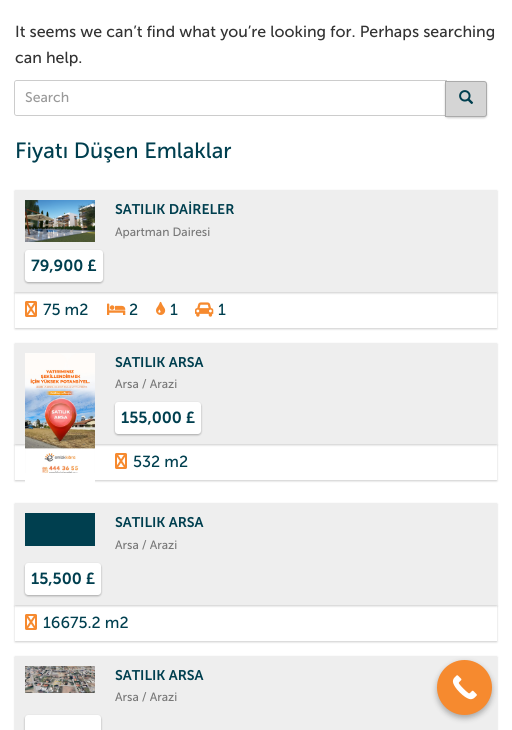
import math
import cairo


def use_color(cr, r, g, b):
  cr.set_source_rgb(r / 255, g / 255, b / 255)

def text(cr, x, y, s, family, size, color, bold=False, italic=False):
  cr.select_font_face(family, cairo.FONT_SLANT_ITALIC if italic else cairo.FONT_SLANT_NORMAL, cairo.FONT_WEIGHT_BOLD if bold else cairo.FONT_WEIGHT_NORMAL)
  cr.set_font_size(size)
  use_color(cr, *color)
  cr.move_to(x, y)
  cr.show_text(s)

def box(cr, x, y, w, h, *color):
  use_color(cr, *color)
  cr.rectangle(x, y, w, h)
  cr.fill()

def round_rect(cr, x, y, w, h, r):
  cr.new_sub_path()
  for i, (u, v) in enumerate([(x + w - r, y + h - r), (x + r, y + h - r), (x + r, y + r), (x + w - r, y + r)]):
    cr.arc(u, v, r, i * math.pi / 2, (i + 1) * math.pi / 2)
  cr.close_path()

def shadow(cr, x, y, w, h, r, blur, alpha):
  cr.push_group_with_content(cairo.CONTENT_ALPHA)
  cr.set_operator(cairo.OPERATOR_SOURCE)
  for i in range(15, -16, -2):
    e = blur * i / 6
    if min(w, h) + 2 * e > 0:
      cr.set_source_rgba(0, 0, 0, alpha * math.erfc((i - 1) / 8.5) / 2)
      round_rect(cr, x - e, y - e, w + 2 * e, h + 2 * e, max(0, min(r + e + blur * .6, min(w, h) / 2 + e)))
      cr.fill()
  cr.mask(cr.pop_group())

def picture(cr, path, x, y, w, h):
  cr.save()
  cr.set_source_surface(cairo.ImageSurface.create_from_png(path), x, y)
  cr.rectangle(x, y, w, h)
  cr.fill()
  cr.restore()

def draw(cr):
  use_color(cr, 255, 255, 255)
  cr.paint()
  cr.new_path()
  cr.move_to(17, 80.5)
  cr.line_to(446.5, 80.5)
  cr.line_to(446.5, 115.5)
  cr.line_to(17, 115.5)
  cr.curve_to(15.5, 115.5, 14.5, 114.5, 14.5, 113)
  cr.line_to(14.5, 83)
  cr.curve_to(14.5, 81.5, 15.5, 80.5, 17, 80.5)
  cr.close_path()
  use_color(cr, 204, 204, 204)
  cr.set_line_width(1)
  cr.stroke()
  use_color(cr, 255, 255, 255)
  cr.new_path()
  cr.move_to(17, 81)
  cr.line_to(446, 81)
  cr.line_to(446, 115)
  cr.line_to(17, 115)
  cr.curve_to(16, 115, 15, 114, 15, 113)
  cr.line_to(15, 83)
  cr.curve_to(15, 82, 16, 81, 17, 81)
  cr.close_path()
  cr.fill()
  use_color(cr, 0, 0, 0)
  shadow(cr, 445, 82, 42, 36, 3, 1, 0.2)
  use_color(cr, 213, 213, 213)
  cr.new_path()
  cr.move_to(445, 81)
  cr.line_to(484, 81)
  cr.curve_to(485.5, 81, 487, 82.5, 487, 84)
  cr.line_to(487, 114)
  cr.curve_to(487, 115.5, 485.5, 117, 484, 117)
  cr.line_to(445, 117)
  cr.close_path()
  cr.fill()
  cr.new_path()
  cr.move_to(445.5, 81.5)
  cr.line_to(484, 81.5)
  cr.curve_to(485.5, 81.5, 486.5, 82.5, 486.5, 84)
  cr.line_to(486.5, 114)
  cr.curve_to(486.5, 115.5, 485.5, 116.5, 484, 116.5)
  cr.line_to(445.5, 116.5)
  cr.close_path()
  cr.set_source_rgba(0, 0, 0, 0.2)
  cr.stroke()
  picture(cr, "img_01.png", 459, 90, 15, 14)
  use_color(cr, 0, 0, 0)
  shadow(cr, 15, 191, 482, 102, 0, 1, 0.2)
  cr.save()
  cr.set_fill_rule(cairo.FILL_RULE_EVEN_ODD)
  cr.new_path()
  cr.move_to(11, 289)
  cr.line_to(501, 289)
  cr.line_to(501, 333)
  cr.line_to(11, 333)
  cr.close_path()
  cr.move_to(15, 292)
  cr.line_to(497, 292)
  cr.line_to(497, 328)
  cr.line_to(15, 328)
  cr.close_path()
  cr.clip()
  shadow(cr, 15, 293, 482, 36, 0, 1, 0.2)
  cr.restore()
  box(cr, 15, 190, 482, 102, 238, 238, 238)
  picture(cr, "img_02.png", 25, 200, 70, 42)
  use_color(cr, 0, 0, 0)
  shadow(cr, 25, 251, 78, 32, 3, 1, 0.3)
  use_color(cr, 255, 255, 255)
  round_rect(cr, 25, 250, 78, 32, 3)
  cr.fill()
  picture(cr, "img_03.png", 25, 301, 12, 16)
  picture(cr, "img_04.png", 107, 303, 19, 12)
  picture(cr, "img_05.png", 156, 301, 10, 14)
  picture(cr, "img_06.png", 195, 302, 19, 15)
  use_color(cr, 0, 0, 0)
  shadow(cr, 15, 344, 482, 101, 0, 1, 0.2)
  cr.save()
  cr.set_fill_rule(cairo.FILL_RULE_EVEN_ODD)
  cr.new_path()
  cr.move_to(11, 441)
  cr.line_to(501, 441)
  cr.line_to(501, 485)
  cr.line_to(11, 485)
  cr.close_path()
  cr.move_to(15, 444)
  cr.line_to(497, 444)
  cr.line_to(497, 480)
  cr.line_to(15, 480)
  cr.close_path()
  cr.clip()
  shadow(cr, 15, 445, 482, 36, 0, 1, 0.2)
  cr.restore()
  box(cr, 15, 343, 482, 101, 238, 238, 238)
  picture(cr, "img_07.png", 25, 353, 70, 120)
  box(cr, 25, 480, 70, 3, 255, 255, 255)
  use_color(cr, 0, 0, 0)
  shadow(cr, 115, 403, 86, 32, 3, 1, 0.3)
  use_color(cr, 255, 255, 255)
  round_rect(cr, 115, 402, 86, 32, 3)
  cr.fill()
  picture(cr, "img_03.png", 115, 453, 12, 16)
  use_color(cr, 0, 0, 0)
  shadow(cr, 15, 504, 482, 102, 0, 1, 0.2)
  cr.save()
  cr.set_fill_rule(cairo.FILL_RULE_EVEN_ODD)
  cr.new_path()
  cr.move_to(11, 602)
  cr.line_to(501, 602)
  cr.line_to(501, 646)
  cr.line_to(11, 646)
  cr.close_path()
  cr.move_to(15, 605)
  cr.line_to(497, 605)
  cr.line_to(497, 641)
  cr.line_to(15, 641)
  cr.close_path()
  cr.clip()
  shadow(cr, 15, 606, 482, 36, 0, 1, 0.2)
  cr.restore()
  box(cr, 15, 503, 482, 102, 238, 238, 238)
  box(cr, 25, 513, 70, 33, 0, 63, 79)
  use_color(cr, 0, 0, 0)
  shadow(cr, 25, 564, 76, 32, 3, 1, 0.3)
  use_color(cr, 255, 255, 255)
  round_rect(cr, 25, 563, 76, 32, 3)
  cr.fill()
  picture(cr, "img_03.png", 25, 614, 12, 16)
  use_color(cr, 0, 0, 0)
  shadow(cr, 15, 657, 482, 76, 0, 1, 0.2)
  box(cr, 15, 656, 482, 74, 238, 238, 238)
  picture(cr, "img_08.png", 25, 666, 70, 27)
  use_color(cr, 0, 0, 0)
  shadow(cr, 25, 716, 76, 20, 3, 1, 0.3)
  use_color(cr, 255, 255, 255)
  round_rect(cr, 25, 715, 76, 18, 3)
  cr.fill()
  use_color(cr, 0, 0, 0)
  shadow(cr, 437, 663, 55, 55, 27.5, 3, 0.3)
  use_color(cr, 246, 138, 47)
  cr.arc(464.5, 687.5, 27.5, 0, 2 * math.pi)
  cr.fill()
  picture(cr, "img_09.png", 452, 675, 25, 25)
  text(cr, 15, 37, "It seems we can’t find what you’re looking for. Perhaps searching", "Museo Sans", 16, (51, 51, 51))
  text(cr, 15, 63, "can help.", "Museo Sans", 16, (51, 51, 51))
  text(cr, 25, 102, "Search", "Museo Sans", 14, (153, 153, 153))
  text(cr, 15, 158, "Fiyatı Düşen Emlaklar", "Museo Sans", 22, (0, 63, 79))
  text(cr, 115, 214, "SATILIK DAİRELER", "Museo Sans SemiBold", 14, (0, 63, 79))
  text(cr, 115, 236, "Apartman Dairesi", "Museo Sans", 12, (119, 119, 119))
  text(cr, 31, 271, "79,900 £", "Museo Sans SemiBold", 16, (0, 63, 79))
  text(cr, 43, 315, "75 m2", "Museo Sans", 16, (0, 63, 79))
  text(cr, 129, 315, "2", "Museo Sans", 16, (0, 63, 79))
  text(cr, 170, 315, "1", "Museo Sans", 16, (0, 63, 79))
  text(cr, 218, 315, "1", "Museo Sans", 16, (0, 63, 79))
  text(cr, 115, 367, "SATILIK ARSA", "Museo Sans SemiBold", 14, (0, 63, 79))
  text(cr, 115, 388, "Arsa / Arazi", "Museo Sans", 12, (119, 119, 119))
  text(cr, 121, 423, "155,000 £", "Museo Sans SemiBold", 16, (0, 63, 79))
  text(cr, 133, 467, "532 m2", "Museo Sans", 16, (0, 63, 79))
  text(cr, 115, 527, "SATILIK ARSA", "Museo Sans SemiBold", 14, (0, 63, 79))
  text(cr, 115, 549, "Arsa / Arazi", "Museo Sans", 12, (119, 119, 119))
  text(cr, 31, 584, "15,500 £", "Museo Sans SemiBold", 16, (0, 63, 79))
  text(cr, 43, 628, "16675.2 m2", "Museo Sans", 16, (0, 63, 79))
  text(cr, 115, 680, "SATILIK ARSA", "Museo Sans SemiBold", 14, (0, 63, 79))
  text(cr, 115, 701, "Arsa / Arazi", "Museo Sans", 12, (119, 119, 119))


surface = cairo.ImageSurface(cairo.FORMAT_RGB24, 512, 730)
cr = cairo.Context(surface)
options = cairo.FontOptions()
options.set_hint_metrics(cairo.HINT_METRICS_OFF)
options.set_hint_style(cairo.HINT_STYLE_NONE)
cr.set_font_options(options)
cr.set_miter_limit(4)
draw(cr)
surface.write_to_png("out.png")
